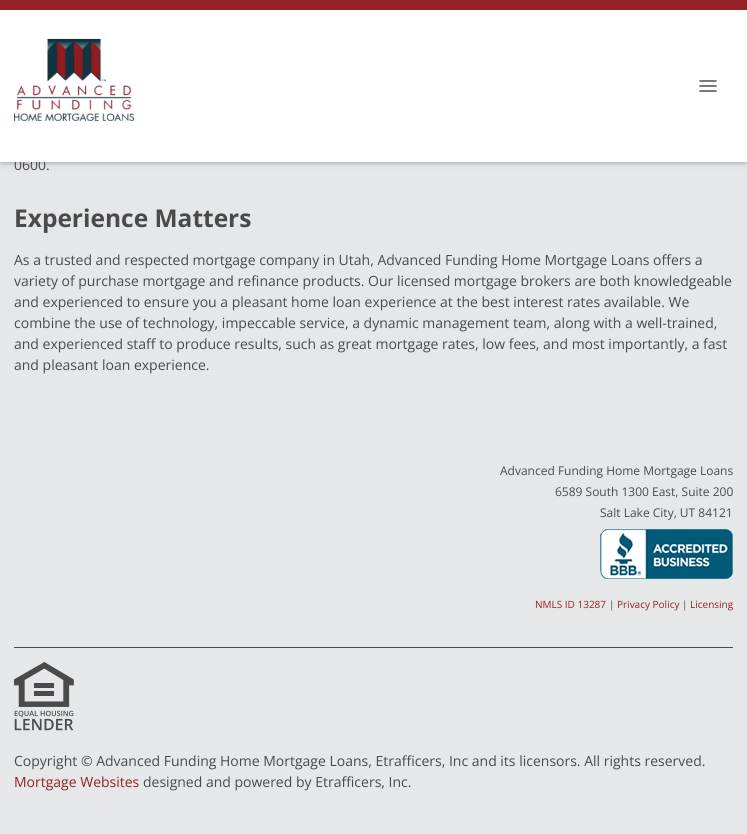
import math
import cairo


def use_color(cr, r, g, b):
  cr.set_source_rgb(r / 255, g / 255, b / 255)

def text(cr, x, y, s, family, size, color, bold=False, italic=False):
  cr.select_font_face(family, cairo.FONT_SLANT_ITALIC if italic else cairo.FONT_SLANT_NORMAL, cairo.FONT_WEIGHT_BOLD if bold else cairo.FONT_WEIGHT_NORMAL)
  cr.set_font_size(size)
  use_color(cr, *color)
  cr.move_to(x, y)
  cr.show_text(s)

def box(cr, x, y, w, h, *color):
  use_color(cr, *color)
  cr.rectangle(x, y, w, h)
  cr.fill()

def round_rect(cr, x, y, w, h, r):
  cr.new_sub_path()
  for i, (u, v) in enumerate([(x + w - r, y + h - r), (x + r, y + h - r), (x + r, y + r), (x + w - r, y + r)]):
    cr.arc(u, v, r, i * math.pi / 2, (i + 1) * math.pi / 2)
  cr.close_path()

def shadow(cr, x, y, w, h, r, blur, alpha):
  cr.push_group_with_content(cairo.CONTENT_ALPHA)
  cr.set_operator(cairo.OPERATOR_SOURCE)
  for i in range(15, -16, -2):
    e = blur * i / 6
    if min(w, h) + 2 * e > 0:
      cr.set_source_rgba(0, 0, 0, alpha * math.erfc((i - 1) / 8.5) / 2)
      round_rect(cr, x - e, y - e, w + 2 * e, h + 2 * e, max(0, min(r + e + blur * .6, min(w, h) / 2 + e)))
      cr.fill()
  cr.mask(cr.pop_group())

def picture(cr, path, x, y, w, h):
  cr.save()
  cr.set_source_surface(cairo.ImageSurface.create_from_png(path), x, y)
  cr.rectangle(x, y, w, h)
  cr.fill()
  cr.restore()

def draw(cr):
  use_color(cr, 230, 231, 233)
  cr.paint()
  use_color(cr, 0, 0, 0)
  shadow(cr, 0, 1, 747, 162, 0, 5, 0.1)
  shadow(cr, 1, 3, 745, 160, 0, 2, 0.2)
  box(cr, 0, 0, 747, 10, 148, 33, 37)
  picture(cr, "img_02.png", 600, 529, 133, 50)
  box(cr, 14, 647, 719, 1, 74, 74, 74)
  picture(cr, "img_03.png", 14, 662, 60, 69)
  text(cr, 14, 170, "0600.", "Open Sans", 14, (74, 74, 74))
  box(cr, 0, 10, 747, 152, 255, 255, 255)
  cr.new_path()
  cr.move_to(700, 81)
  cr.line_to(716, 81)
  cr.move_to(700, 86)
  cr.line_to(716, 86)
  cr.move_to(700, 91)
  cr.line_to(716, 91)
  use_color(cr, 74, 74, 74)
  cr.set_line_width(1.5)
  cr.set_line_cap(cairo.LINE_CAP_ROUND)
  cr.set_line_join(cairo.LINE_JOIN_ROUND)
  cr.stroke()
  picture(cr, "img_01.png", 14, 38, 120, 83)
  text(cr, 14, 227, "Experience Matters", "Open Sans", 24.5, (74, 74, 74), bold=True)
  text(cr, 14, 265, "As a trusted and respected mortgage company in Utah, Advanced Funding Home Mortgage Loans offers a", "Open Sans", 14, (74, 74, 74))
  text(cr, 14, 286, "variety of purchase mortgage and refinance products. Our licensed mortgage brokers are both knowledgeable", "Open Sans", 14, (74, 74, 74))
  text(cr, 14, 307, "and experienced to ensure you a pleasant home loan experience at the best interest rates available. We", "Open Sans", 14, (74, 74, 74))
  text(cr, 14, 328, "combine the use of technology, impeccable service, a dynamic management team, along with a well-trained,", "Open Sans", 14, (74, 74, 74))
  text(cr, 14, 349, "and experienced staff to produce results, such as great mortgage rates, low fees, and most importantly, a fast", "Open Sans", 14, (74, 74, 74))
  text(cr, 14, 370, "and pleasant loan experience.", "Open Sans", 14, (74, 74, 74))
  text(cr, 500, 475, "Advanced Funding Home Mortgage Loans", "Open Sans", 12, (74, 74, 74))
  text(cr, 555, 496, "6589 South 1300 East, Suite 200", "Open Sans", 12, (74, 74, 74))
  text(cr, 600, 517, "Salt Lake City, UT 84121", "Open Sans", 12, (74, 74, 74))
  text(cr, 535, 608, "NMLS ID 13287", "Open Sans", 10, (148, 33, 37))
  text(cr, 609, 608, "|", "Open Sans", 10, (74, 74, 74))
  text(cr, 617, 608, "Privacy Policy", "Open Sans", 10, (148, 33, 37))
  text(cr, 682, 608, "|", "Open Sans", 10, (74, 74, 74))
  text(cr, 690, 608, "Licensing", "Open Sans", 10, (148, 33, 37))
  text(cr, 14, 766, "Copyright © Advanced Funding Home Mortgage Loans, Etrafficers, Inc and its licensors. All rights reserved.", "Open Sans", 14, (74, 74, 74))
  text(cr, 14, 787, "Mortgage Websites", "Open Sans", 14, (148, 33, 37))
  text(cr, 143, 787, "designed and powered by Etrafficers, Inc.", "Open Sans", 14, (74, 74, 74))


surface = cairo.ImageSurface(cairo.FORMAT_RGB24, 747, 834)
cr = cairo.Context(surface)
options = cairo.FontOptions()
options.set_hint_metrics(cairo.HINT_METRICS_OFF)
options.set_hint_style(cairo.HINT_STYLE_NONE)
cr.set_font_options(options)
cr.set_miter_limit(4)
draw(cr)
surface.write_to_png("out.png")
